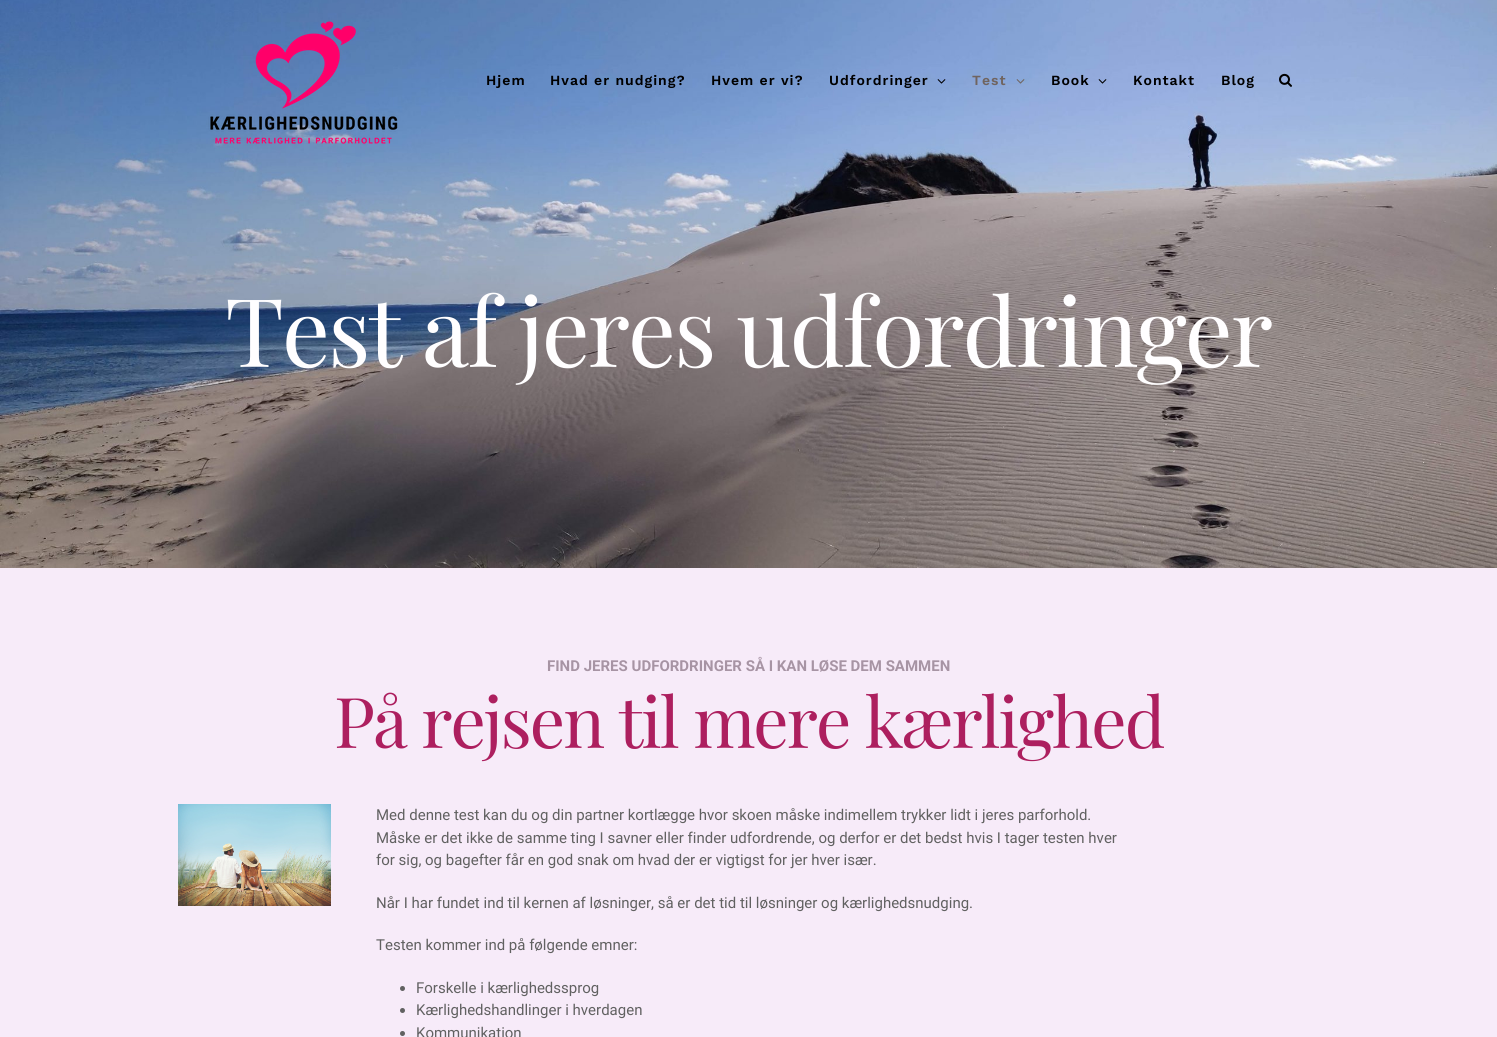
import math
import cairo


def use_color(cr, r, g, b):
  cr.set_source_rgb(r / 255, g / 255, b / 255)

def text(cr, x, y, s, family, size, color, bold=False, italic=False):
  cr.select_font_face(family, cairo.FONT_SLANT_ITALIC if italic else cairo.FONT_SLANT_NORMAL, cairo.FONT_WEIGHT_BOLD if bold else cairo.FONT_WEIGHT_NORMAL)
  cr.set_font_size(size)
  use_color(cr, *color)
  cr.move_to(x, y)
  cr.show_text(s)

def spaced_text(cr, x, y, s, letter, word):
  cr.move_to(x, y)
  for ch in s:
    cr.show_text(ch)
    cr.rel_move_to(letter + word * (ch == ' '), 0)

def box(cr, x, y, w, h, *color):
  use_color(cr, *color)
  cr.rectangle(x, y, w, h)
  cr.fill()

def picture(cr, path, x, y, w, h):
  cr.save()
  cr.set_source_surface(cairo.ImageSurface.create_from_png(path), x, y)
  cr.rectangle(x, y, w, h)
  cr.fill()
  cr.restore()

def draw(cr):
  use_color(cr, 255, 255, 255)
  cr.paint()
  picture(cr, "img_06.png", 0, 0, 1497, 568)
  picture(cr, "img_01.png", 208, 21, 190, 123)
  picture(cr, "img_02.png", 937, 79, 9, 5)
  picture(cr, "img_03.png", 1016, 79, 9, 5)
  picture(cr, "img_04.png", 1098, 79, 9, 5)
  picture(cr, "img_05.png", 1279, 73, 13, 14)
  box(cr, 0, 568, 1497, 469, 247, 235, 249)
  picture(cr, "img_07.png", 178, 804, 153, 102)
  use_color(cr, 97, 97, 97)
  cr.arc(402.5, 988.5, 2.5, 0, 2 * math.pi)
  cr.fill()
  cr.arc(402.5, 1010.5, 2.5, 0, 2 * math.pi)
  cr.fill()
  cr.arc(402.5, 1033.5, 2.5, 0, 2 * math.pi)
  cr.fill()
  cr.select_font_face("Work Sans SemiBold")
  cr.set_font_size(14)
  use_color(cr, 0, 0, 0)
  spaced_text(cr, 486, 85, "Hjem", 1, 0)
  spaced_text(cr, 550, 85, "Hvad er nudging?", 1, 0)
  spaced_text(cr, 711, 85, "Hvem er vi?", 1, 0)
  spaced_text(cr, 829, 85, "Udfordringer", 1, 0)
  use_color(cr, 112, 100, 95)
  spaced_text(cr, 972, 85, "Test", 1, 0)
  use_color(cr, 0, 0, 0)
  spaced_text(cr, 1051, 85, "Book", 1, 0)
  spaced_text(cr, 1133, 85, "Kontakt", 1, 0)
  spaced_text(cr, 1221, 85, "Blog", 1, 0)
  cr.select_font_face("Playfair Display")
  cr.set_font_size(95)
  use_color(cr, 255, 254, 255)
  spaced_text(cr, 225, 367, "Test af jeres udfordringer", -2, 0)
  text(cr, 547, 671, "FIND JERES UDFORDRINGER SÅ I KAN LØSE DEM SAMMEN", "Roboto", 15, (167, 148, 164), bold=True)
  cr.select_font_face("Playfair Display")
  cr.set_font_size(70)
  use_color(cr, 173, 31, 95)
  spaced_text(cr, 334, 748, "På rejsen til mere kærlighed", -2, 0)
  text(cr, 376, 820, "Med denne test kan du og din partner kortlægge hvor skoen måske indimellem trykker lidt i jeres parforhold.", "Roboto", 15, (97, 97, 97))
  text(cr, 376, 843, "Måske er det ikke de samme ting I savner eller finder udfordrende, og derfor er det bedst hvis I tager testen hver", "Roboto", 15, (97, 97, 97))
  text(cr, 376, 865, "for sig, og bagefter får en god snak om hvad der er vigtigst for jer hver især.", "Roboto", 15, (97, 97, 97))
  text(cr, 376, 908, "Når I har fundet ind til kernen af løsninger, så er det tid til løsninger og kærlighedsnudging.", "Roboto", 15, (97, 97, 97))
  text(cr, 376, 950, "Testen kommer ind på følgende emner:", "Roboto", 15, (97, 97, 97))
  text(cr, 416, 993, "Forskelle i kærlighedssprog", "Roboto", 15, (97, 97, 97))
  text(cr, 416, 1015, "Kærlighedshandlinger i hverdagen", "Roboto", 15, (97, 97, 97))
  text(cr, 416, 1038, "Kommunikation", "Roboto", 15, (97, 97, 97))


surface = cairo.ImageSurface(cairo.FORMAT_RGB24, 1497, 1037)
cr = cairo.Context(surface)
options = cairo.FontOptions()
options.set_hint_metrics(cairo.HINT_METRICS_OFF)
options.set_hint_style(cairo.HINT_STYLE_NONE)
cr.set_font_options(options)
cr.set_miter_limit(4)
draw(cr)
surface.write_to_png("out.png")
